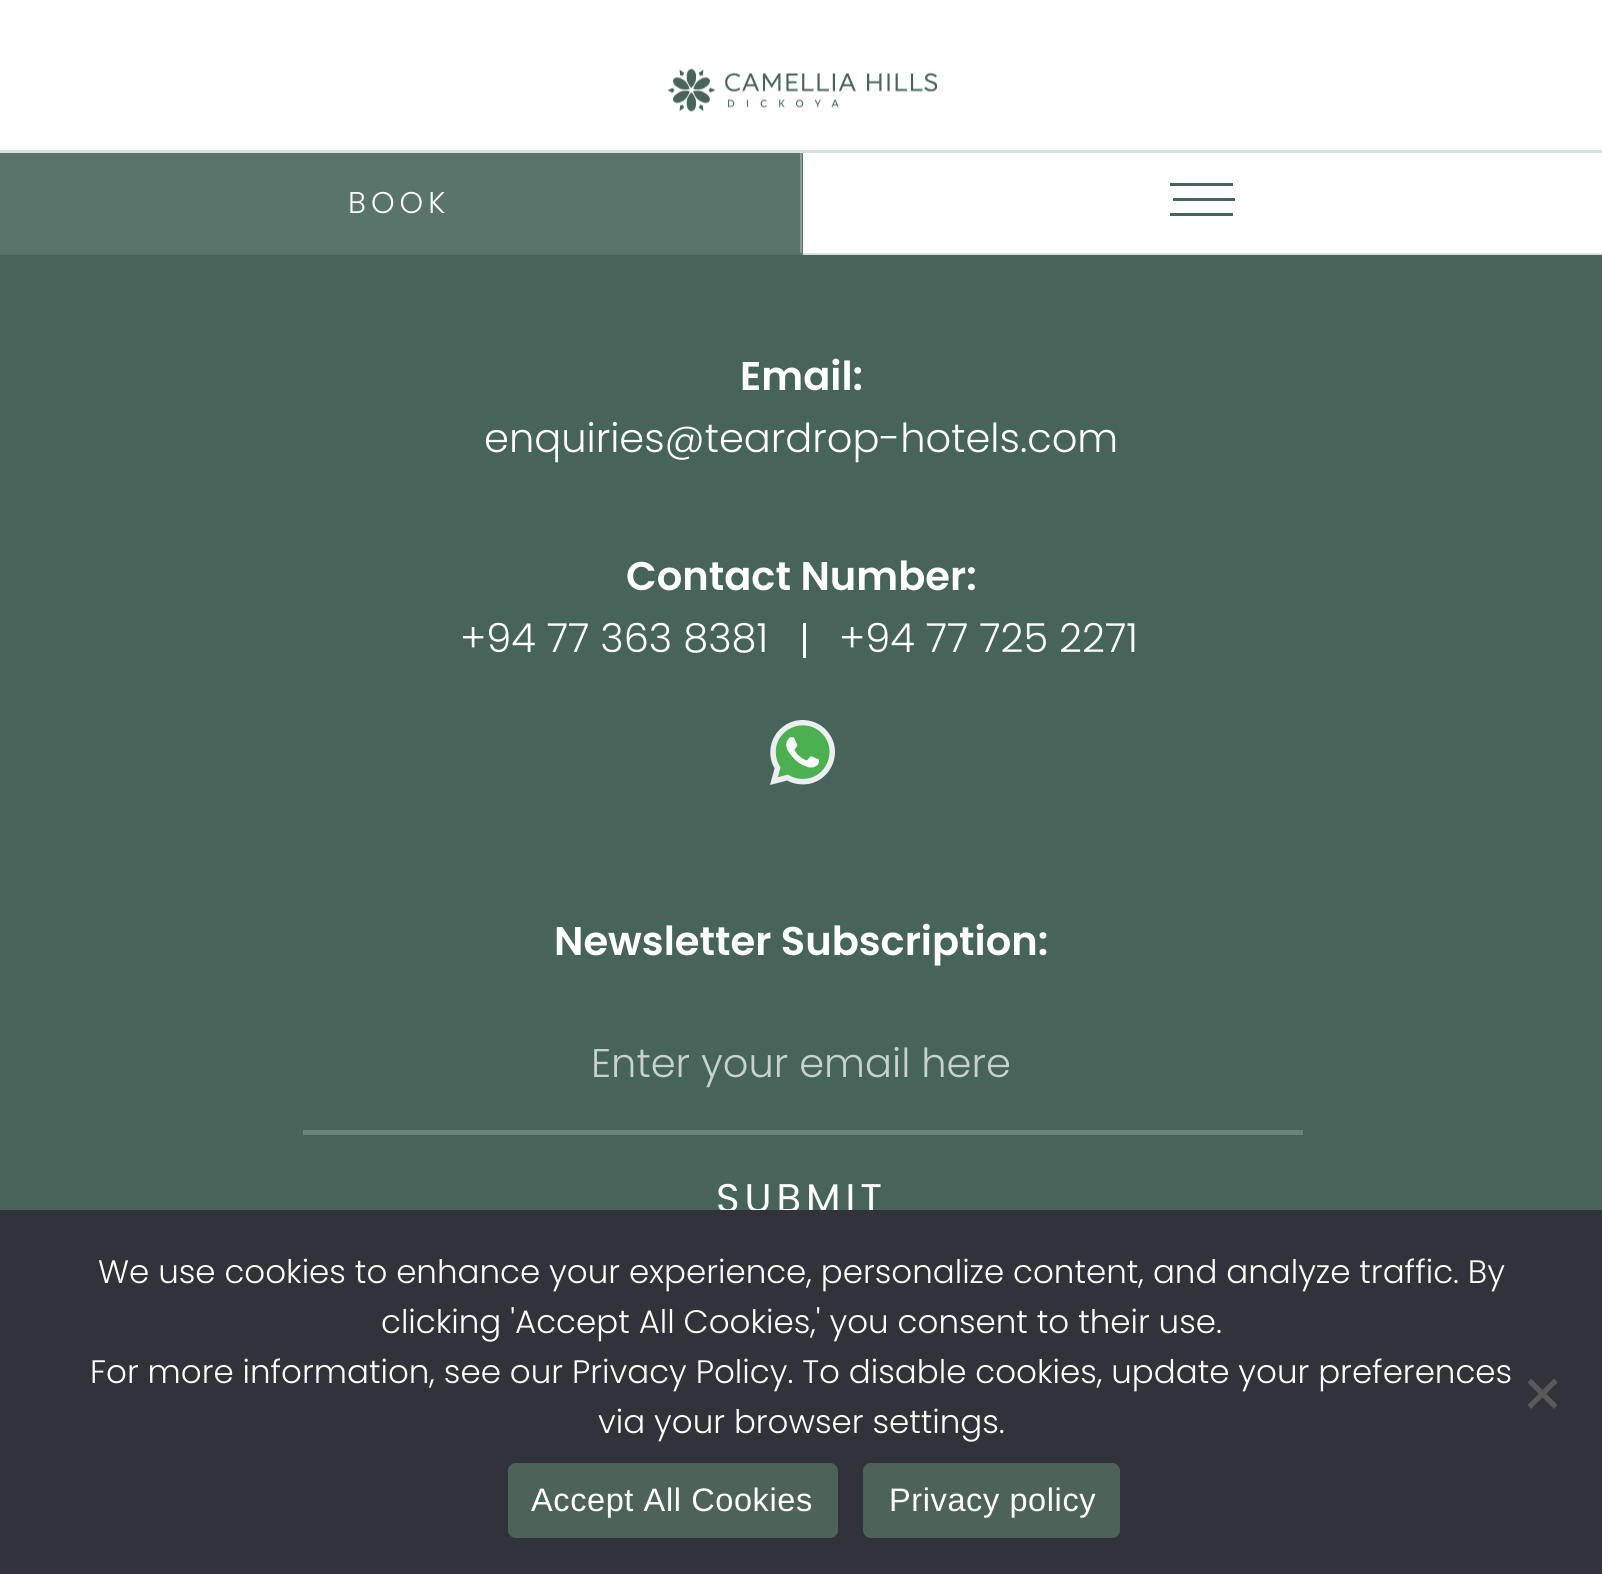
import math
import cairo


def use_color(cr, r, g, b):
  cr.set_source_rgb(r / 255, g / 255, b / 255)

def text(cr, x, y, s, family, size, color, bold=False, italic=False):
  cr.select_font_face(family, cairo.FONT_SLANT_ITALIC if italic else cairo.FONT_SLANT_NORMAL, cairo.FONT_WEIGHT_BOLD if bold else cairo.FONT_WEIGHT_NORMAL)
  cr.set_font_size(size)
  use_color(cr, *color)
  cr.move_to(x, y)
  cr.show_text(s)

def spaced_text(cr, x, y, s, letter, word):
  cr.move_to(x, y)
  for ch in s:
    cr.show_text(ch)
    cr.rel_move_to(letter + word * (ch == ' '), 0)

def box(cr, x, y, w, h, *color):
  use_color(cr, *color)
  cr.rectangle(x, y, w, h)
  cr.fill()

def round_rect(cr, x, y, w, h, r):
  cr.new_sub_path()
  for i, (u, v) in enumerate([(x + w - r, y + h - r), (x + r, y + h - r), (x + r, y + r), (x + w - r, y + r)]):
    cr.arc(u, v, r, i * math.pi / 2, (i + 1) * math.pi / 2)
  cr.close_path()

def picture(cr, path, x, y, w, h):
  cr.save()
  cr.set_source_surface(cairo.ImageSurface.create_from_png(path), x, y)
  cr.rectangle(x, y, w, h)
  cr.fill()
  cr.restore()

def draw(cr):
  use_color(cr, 71, 100, 90)
  cr.paint()
  box(cr, 0, 0, 1602, 253, 255, 255, 255)
  box(cr, 803, 253, 799, 2, 218, 224, 222)
  box(cr, 0, 150, 1602, 3, 218, 224, 222)
  picture(cr, "img_01.png", 668, 68, 270, 44)
  box(cr, 0, 153, 803, 102, 89, 116, 107)
  cr.set_source_rgba(1, 1, 1, 0.3)
  cr.new_path()
  cr.move_to(802, 152)
  cr.line_to(802, 255)
  cr.line_to(800, 252)
  cr.line_to(800, 152)
  cr.close_path()
  cr.fill()
  cr.set_source_rgba(0.278, 0.392, 0.353, 0.2)
  cr.new_path()
  cr.move_to(802, 255)
  cr.line_to(0, 255)
  cr.line_to(0, 252)
  cr.line_to(800, 252)
  cr.close_path()
  cr.fill()
  box(cr, 1173, 198, 62, 3, 71, 100, 90)
  box(cr, 1170, 183, 63, 3, 71, 100, 90)
  box(cr, 1170, 213, 63, 3, 71, 100, 90)
  box(cr, 803, 623, 3, 35, 255, 255, 255)
  picture(cr, "img_02.png", 770, 720, 65, 65)
  box(cr, 303, 1130, 1000, 5, 108, 131, 123)
  cr.select_font_face("Poppins Light")
  cr.set_font_size(30)
  use_color(cr, 255, 255, 255)
  spaced_text(cr, 348, 213, "BOOK", 5, 0)
  text(cr, 740, 390, "Email:", "Poppins SemiBold", 40, (255, 255, 255))
  text(cr, 484, 452, "enquiries@teardrop-hotels.com", "Poppins Light", 40, (255, 255, 255))
  text(cr, 626, 590, "Contact Number:", "Poppins SemiBold", 40, (255, 255, 255))
  text(cr, 460, 652, "+94 77 363 8381", "Poppins Light", 40, (255, 255, 255))
  text(cr, 839, 652, "+94 77 725 2271", "Poppins Light", 40, (255, 255, 255))
  text(cr, 554, 955, "Newsletter Subscription:", "Poppins SemiBold", 40, (255, 255, 255))
  text(cr, 591, 1077, "Enter your email here", "Poppins Light", 40, (200, 209, 206))
  cr.select_font_face("Poppins")
  use_color(cr, 255, 255, 255)
  spaced_text(cr, 716, 1212, "SUBMIT", 5, 0)
  box(cr, 0, 1210, 1602, 364, 50, 50, 58)
  text(cr, 98, 1283, "We use cookies to enhance your experience, personalize content, and analyze traffic. By", "Poppins Light", 32.5, (255, 255, 255))
  text(cr, 381, 1333, "clicking 'Accept All Cookies,' you consent to their use.", "Poppins Light", 32.5, (255, 255, 255))
  text(cr, 90, 1383, "For more information, see our Privacy Policy. To disable cookies, update your preferences", "Poppins Light", 32.5, (255, 255, 255))
  text(cr, 598, 1433, "via your browser settings.", "Poppins Light", 32.5, (255, 255, 255))
  use_color(cr, 89, 89, 93)
  cr.new_path()
  cr.move_to(1554, 1378.5)
  cr.line_to(1557.5, 1382.5)
  cr.line_to(1531, 1409)
  cr.line_to(1527.5, 1405)
  cr.close_path()
  cr.fill()
  cr.new_path()
  cr.move_to(1527.5, 1382.5)
  cr.line_to(1531, 1378.5)
  cr.line_to(1557.5, 1405)
  cr.line_to(1554, 1409)
  cr.close_path()
  cr.fill()
  use_color(cr, 77, 99, 90)
  round_rect(cr, 508, 1463, 330, 75, 8)
  cr.fill()
  cr.select_font_face("Liberation Sans")
  use_color(cr, 255, 255, 255)
  spaced_text(cr, 531, 1511, "Accept All Cookies", 0.6, 0)
  use_color(cr, 77, 99, 90)
  round_rect(cr, 863, 1463, 257, 75, 8)
  cr.fill()
  use_color(cr, 255, 255, 255)
  spaced_text(cr, 889, 1511, "Privacy policy", 0.6, 0)


surface = cairo.ImageSurface(cairo.FORMAT_RGB24, 1602, 1574)
cr = cairo.Context(surface)
options = cairo.FontOptions()
options.set_hint_metrics(cairo.HINT_METRICS_OFF)
options.set_hint_style(cairo.HINT_STYLE_NONE)
cr.set_font_options(options)
cr.set_miter_limit(4)
draw(cr)
surface.write_to_png("out.png")
